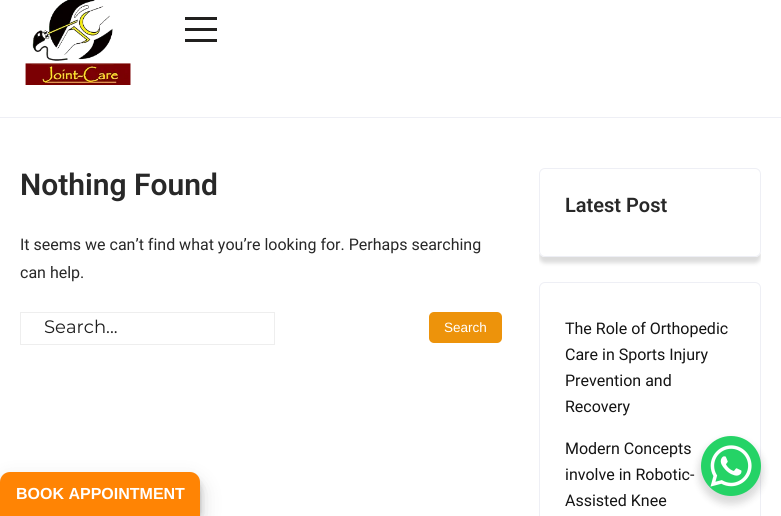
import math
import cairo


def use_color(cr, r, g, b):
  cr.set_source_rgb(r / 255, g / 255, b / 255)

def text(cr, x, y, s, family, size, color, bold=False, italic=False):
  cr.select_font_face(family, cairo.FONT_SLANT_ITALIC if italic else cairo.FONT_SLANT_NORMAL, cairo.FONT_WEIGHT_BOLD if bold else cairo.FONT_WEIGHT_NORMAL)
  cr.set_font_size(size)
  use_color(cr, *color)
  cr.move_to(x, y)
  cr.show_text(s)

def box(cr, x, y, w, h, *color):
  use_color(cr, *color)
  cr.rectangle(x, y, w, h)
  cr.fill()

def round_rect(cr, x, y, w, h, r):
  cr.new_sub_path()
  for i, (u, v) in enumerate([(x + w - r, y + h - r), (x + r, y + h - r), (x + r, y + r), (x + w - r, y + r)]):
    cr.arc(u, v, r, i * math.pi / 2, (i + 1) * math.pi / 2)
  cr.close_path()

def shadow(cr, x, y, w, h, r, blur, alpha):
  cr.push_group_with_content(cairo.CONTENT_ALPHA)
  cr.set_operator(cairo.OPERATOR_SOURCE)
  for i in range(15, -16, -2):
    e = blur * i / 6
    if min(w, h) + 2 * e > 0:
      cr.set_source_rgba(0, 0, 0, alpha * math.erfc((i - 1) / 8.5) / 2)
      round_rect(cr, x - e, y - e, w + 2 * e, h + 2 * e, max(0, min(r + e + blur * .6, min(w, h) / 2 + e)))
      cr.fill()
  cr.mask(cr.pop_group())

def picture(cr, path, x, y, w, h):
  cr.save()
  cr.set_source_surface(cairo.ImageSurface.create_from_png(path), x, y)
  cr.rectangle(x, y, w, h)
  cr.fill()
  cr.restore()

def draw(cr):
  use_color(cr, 255, 255, 255)
  cr.paint()
  box(cr, 0, 117, 781, 1, 238, 239, 245)
  picture(cr, "img_01.png", 25, 0, 106, 85)
  box(cr, 185, 17, 32, 3, 33, 32, 31)
  box(cr, 185, 28, 32, 3, 33, 32, 31)
  box(cr, 185, 39, 32, 3, 33, 32, 31)
  cr.rectangle(20.5, 312.5, 254, 32)
  use_color(cr, 238, 238, 238)
  cr.set_line_width(1)
  cr.stroke()
  use_color(cr, 237, 147, 11)
  round_rect(cr, 429, 312, 73, 31, 5)
  cr.fill()
  cr.save()
  cr.rectangle(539, 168, 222, 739)
  cr.clip()
  cr.set_fill_rule(cairo.FILL_RULE_EVEN_ODD)
  cr.new_path()
  cr.move_to(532, 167)
  cr.line_to(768, 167)
  cr.line_to(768, 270)
  cr.line_to(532, 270)
  cr.close_path()
  cr.move_to(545, 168)
  cr.line_to(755, 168)
  cr.curve_to(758.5, 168, 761, 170.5, 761, 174)
  cr.line_to(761, 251)
  cr.curve_to(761, 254.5, 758.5, 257, 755, 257)
  cr.line_to(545, 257)
  cr.curve_to(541.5, 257, 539, 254.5, 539, 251)
  cr.line_to(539, 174)
  cr.curve_to(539, 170.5, 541.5, 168, 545, 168)
  cr.close_path()
  cr.clip()
  use_color(cr, 220, 220, 220)
  shadow(cr, 539, 174, 222, 89, 6, 2, 1)
  cr.restore()
  round_rect(cr, 539.5, 168.5, 221, 88, 5.5)
  use_color(cr, 238, 239, 245)
  cr.stroke()
  round_rect(cr, 539.5, 282.5, 221, 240, 5.5)
  cr.stroke()
  use_color(cr, 0, 0, 0)
  shadow(cr, 699, 440, 64, 64, 32, 4, 0.15)
  use_color(cr, 37, 211, 102)
  cr.arc(731, 466, 30, 0, 2 * math.pi)
  cr.fill()
  picture(cr, "img_02.png", 710, 445, 42, 42)
  use_color(cr, 0, 0, 0)
  shadow(cr, 0, 478, 200, 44, 10, 3, 0.23)
  shadow(cr, 0, 482, 200, 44, 10, 10, 0.19)
  use_color(cr, 255, 132, 4)
  cr.new_path()
  cr.move_to(10, 472)
  cr.line_to(190, 472)
  cr.curve_to(195.5, 472, 200, 476.5, 200, 482)
  cr.line_to(200, 516)
  cr.line_to(0, 516)
  cr.line_to(0, 482)
  cr.curve_to(0, 476.5, 4.5, 472, 10, 472)
  cr.close_path()
  cr.fill()
  text(cr, 20, 195, "Nothing Found", "Roboto SemiBold", 30, (40, 40, 40))
  text(cr, 20, 250, "It seems we can’t find what you’re looking for. Perhaps searching", "Roboto", 16, (40, 40, 40))
  text(cr, 20, 278, "can help.", "Roboto", 16, (40, 40, 40))
  text(cr, 44, 333, "Search...", "Montserrat", 18, (30, 30, 30))
  text(cr, 444, 332, "Search", "Liberation Sans", 13.5, (255, 255, 255))
  text(cr, 565, 212, "Latest Post", "Roboto SemiBold", 20, (40, 40, 40))
  text(cr, 565, 334, "The Role of Orthopedic", "Roboto", 16, (20, 20, 20))
  text(cr, 565, 360, "Care in Sports Injury", "Roboto", 16, (20, 20, 20))
  text(cr, 565, 386, "Prevention and", "Roboto", 16, (20, 20, 20))
  text(cr, 565, 412, "Recovery", "Roboto", 16, (20, 20, 20))
  text(cr, 565, 454, "Modern Concepts", "Roboto", 16, (20, 20, 20))
  text(cr, 565, 480, "involve in Robotic-", "Roboto", 16, (20, 20, 20))
  text(cr, 565, 506, "Assisted Knee", "Roboto", 16, (20, 20, 20))
  text(cr, 16, 499, "BOOK APPOINTMENT", "Liberation Sans", 16, (255, 255, 255), bold=True)


surface = cairo.ImageSurface(cairo.FORMAT_RGB24, 781, 516)
cr = cairo.Context(surface)
options = cairo.FontOptions()
options.set_hint_metrics(cairo.HINT_METRICS_OFF)
options.set_hint_style(cairo.HINT_STYLE_NONE)
cr.set_font_options(options)
cr.set_miter_limit(4)
draw(cr)
surface.write_to_png("out.png")
